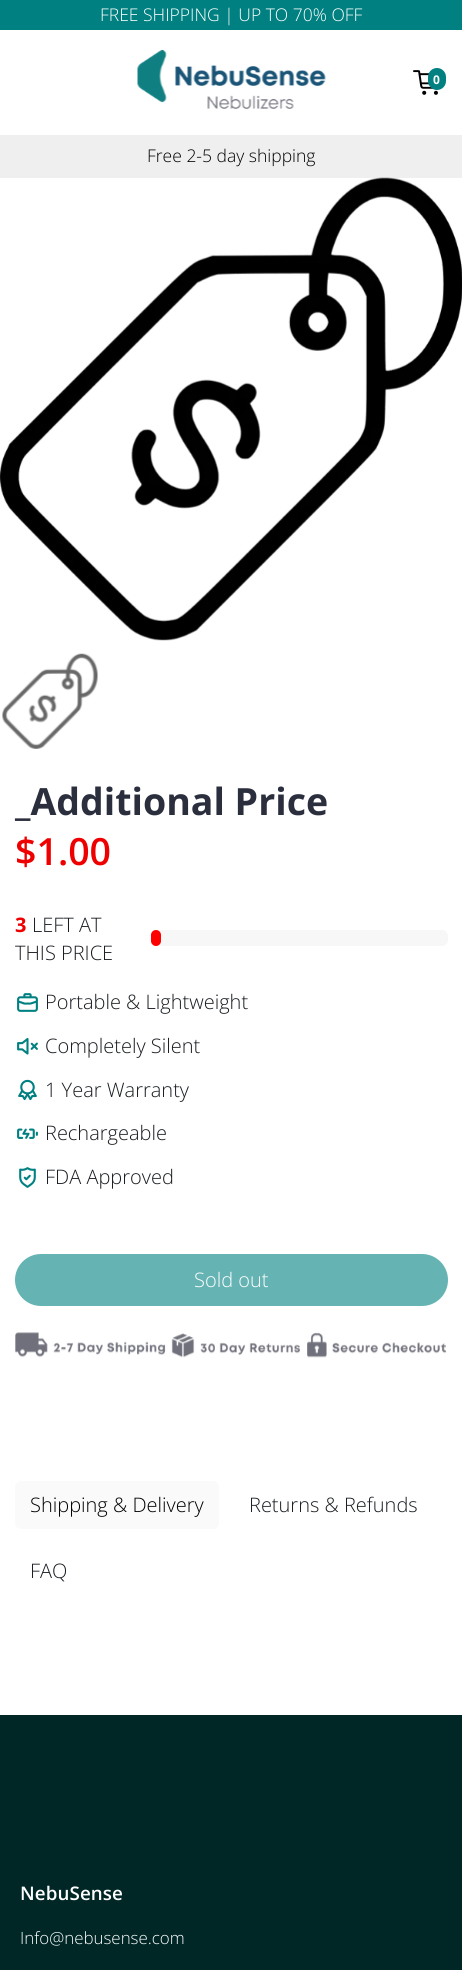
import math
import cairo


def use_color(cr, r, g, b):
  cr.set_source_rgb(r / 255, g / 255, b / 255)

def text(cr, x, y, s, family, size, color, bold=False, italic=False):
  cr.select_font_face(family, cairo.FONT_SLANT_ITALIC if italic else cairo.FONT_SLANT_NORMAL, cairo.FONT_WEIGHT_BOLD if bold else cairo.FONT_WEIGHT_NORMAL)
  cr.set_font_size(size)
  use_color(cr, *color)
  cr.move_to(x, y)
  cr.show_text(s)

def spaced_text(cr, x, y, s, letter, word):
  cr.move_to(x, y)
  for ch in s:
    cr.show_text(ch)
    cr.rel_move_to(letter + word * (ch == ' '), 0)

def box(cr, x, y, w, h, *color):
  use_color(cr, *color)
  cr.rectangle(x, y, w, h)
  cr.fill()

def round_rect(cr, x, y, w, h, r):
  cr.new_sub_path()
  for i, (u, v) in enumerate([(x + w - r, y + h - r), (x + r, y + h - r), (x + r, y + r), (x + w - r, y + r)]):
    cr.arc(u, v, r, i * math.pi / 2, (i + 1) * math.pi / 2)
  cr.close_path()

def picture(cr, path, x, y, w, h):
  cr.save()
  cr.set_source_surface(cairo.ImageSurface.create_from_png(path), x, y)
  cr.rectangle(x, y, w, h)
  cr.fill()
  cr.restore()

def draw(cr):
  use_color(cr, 255, 255, 255)
  cr.paint()
  box(cr, 0, 0, 462, 30, 0, 128, 128)
  picture(cr, "img_01.png", 137, 50, 189, 59)
  picture(cr, "img_02.png", 413, 70, 25, 25)
  round_rect(cr, 428, 68, 18, 22, 9)
  cr.fill()
  box(cr, 0, 135, 462, 43, 239, 239, 239)
  picture(cr, "img_03.png", 0, 177, 462, 464)
  picture(cr, "img_04.png", 2, 653, 96, 96)
  use_color(cr, 247, 247, 247)
  round_rect(cr, 151, 930, 297, 16, 6)
  cr.fill()
  use_color(cr, 255, 0, 0)
  round_rect(cr, 151, 930, 10, 16, 5)
  cr.fill()
  picture(cr, "img_05.png", 17, 993, 21, 19)
  picture(cr, "img_06.png", 17, 1038, 21, 17)
  picture(cr, "img_07.png", 18, 1079, 19, 22)
  picture(cr, "img_08.png", 17, 1128, 21, 11)
  picture(cr, "img_09.png", 19, 1167, 17, 21)
  use_color(cr, 102, 179, 179)
  round_rect(cr, 15, 1254, 433, 52, 26)
  cr.fill()
  picture(cr, "img_10.png", 15, 1332, 431, 26)
  use_color(cr, 250, 250, 250)
  round_rect(cr, 15, 1481, 204, 48, 6)
  cr.fill()
  box(cr, 0, 1715, 462, 255, 0, 38, 38)
  text(cr, 100, 21, "FREE SHIPPING | UP TO 70% OFF", "Open Sans Light", 17.5, (255, 255, 255))
  text(cr, 433, 84, "0", "Open Sans", 12, (255, 255, 255), bold=True)
  text(cr, 147, 162, "Free 2-5 day shipping", "Open Sans Light", 17.5, (0, 0, 0))
  text(cr, 15, 815, "_Additional Price", "Open Sans", 37.5, (43, 47, 61), bold=True)
  text(cr, 15, 865, "$1.00", "Open Sans SemiBold", 37.5, (239, 0, 0))
  text(cr, 15, 932, "3", "Open Sans", 20, (239, 0, 0), bold=True)
  text(cr, 32, 932, "LEFT AT", "Open Sans Light", 20, (25, 29, 33))
  text(cr, 15, 960, "THIS PRICE", "Open Sans Light", 20, (25, 29, 33))
  text(cr, 45, 1009, "Portable & Lightweight", "Open Sans Light", 20, (25, 29, 33))
  text(cr, 45, 1053, "Completely Silent", "Open Sans Light", 20, (25, 29, 33))
  text(cr, 45, 1097, "1 Year Warranty", "Open Sans Light", 20, (25, 29, 33))
  text(cr, 45, 1140, "Rechargeable", "Open Sans Light", 20, (25, 29, 33))
  text(cr, 45, 1184, "FDA Approved", "Open Sans Light", 20, (25, 29, 33))
  text(cr, 194, 1287, "Sold out", "Open Sans Light", 20, (255, 255, 255))
  text(cr, 30, 1512, "Shipping & Delivery", "Open Sans Light", 20, (0, 0, 0))
  text(cr, 249, 1512, "Returns & Refunds", "Open Sans Light", 20, (25, 29, 33))
  text(cr, 30, 1578, "FAQ", "Open Sans Light", 20, (25, 29, 33))
  cr.select_font_face("Open Sans SemiBold")
  cr.set_font_size(18.75)
  use_color(cr, 255, 255, 255)
  spaced_text(cr, 20, 1900, "NebuSense", 0.1, 0)
  text(cr, 20, 1944, "Info@nebusense.com", "Open Sans Light", 16.9, (255, 255, 255))


surface = cairo.ImageSurface(cairo.FORMAT_RGB24, 462, 1970)
cr = cairo.Context(surface)
options = cairo.FontOptions()
options.set_hint_metrics(cairo.HINT_METRICS_OFF)
options.set_hint_style(cairo.HINT_STYLE_NONE)
cr.set_font_options(options)
cr.set_miter_limit(4)
draw(cr)
surface.write_to_png("out.png")
